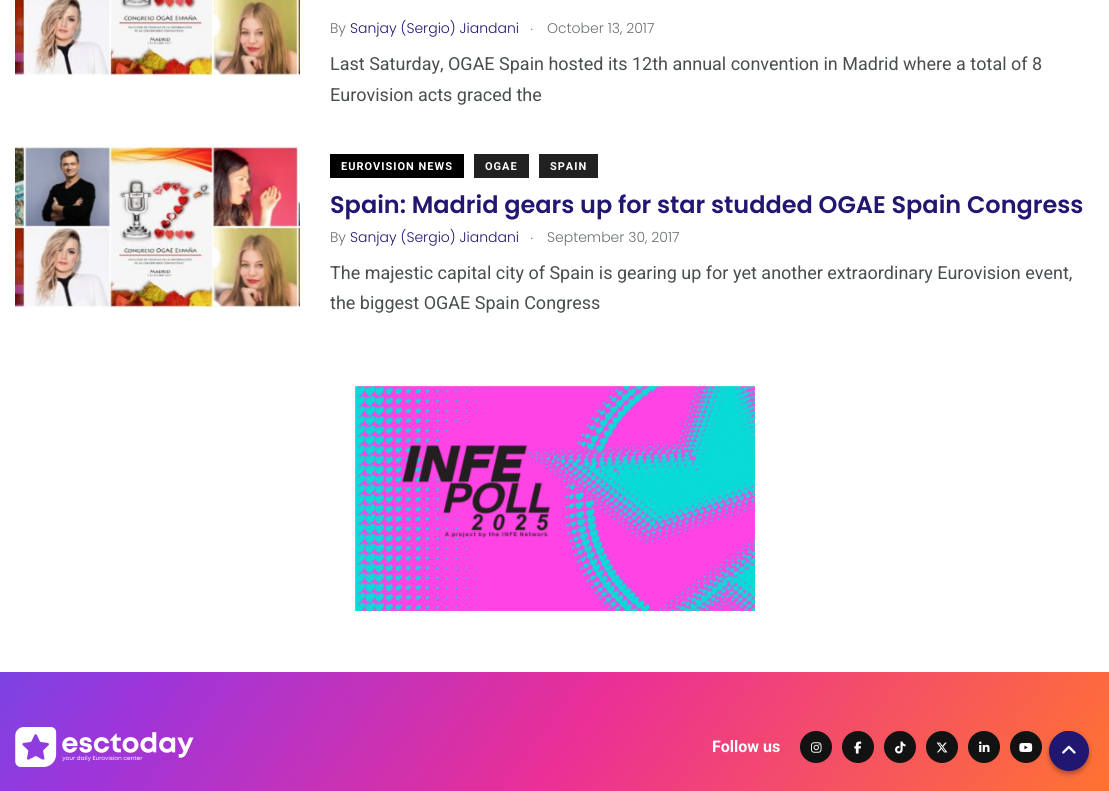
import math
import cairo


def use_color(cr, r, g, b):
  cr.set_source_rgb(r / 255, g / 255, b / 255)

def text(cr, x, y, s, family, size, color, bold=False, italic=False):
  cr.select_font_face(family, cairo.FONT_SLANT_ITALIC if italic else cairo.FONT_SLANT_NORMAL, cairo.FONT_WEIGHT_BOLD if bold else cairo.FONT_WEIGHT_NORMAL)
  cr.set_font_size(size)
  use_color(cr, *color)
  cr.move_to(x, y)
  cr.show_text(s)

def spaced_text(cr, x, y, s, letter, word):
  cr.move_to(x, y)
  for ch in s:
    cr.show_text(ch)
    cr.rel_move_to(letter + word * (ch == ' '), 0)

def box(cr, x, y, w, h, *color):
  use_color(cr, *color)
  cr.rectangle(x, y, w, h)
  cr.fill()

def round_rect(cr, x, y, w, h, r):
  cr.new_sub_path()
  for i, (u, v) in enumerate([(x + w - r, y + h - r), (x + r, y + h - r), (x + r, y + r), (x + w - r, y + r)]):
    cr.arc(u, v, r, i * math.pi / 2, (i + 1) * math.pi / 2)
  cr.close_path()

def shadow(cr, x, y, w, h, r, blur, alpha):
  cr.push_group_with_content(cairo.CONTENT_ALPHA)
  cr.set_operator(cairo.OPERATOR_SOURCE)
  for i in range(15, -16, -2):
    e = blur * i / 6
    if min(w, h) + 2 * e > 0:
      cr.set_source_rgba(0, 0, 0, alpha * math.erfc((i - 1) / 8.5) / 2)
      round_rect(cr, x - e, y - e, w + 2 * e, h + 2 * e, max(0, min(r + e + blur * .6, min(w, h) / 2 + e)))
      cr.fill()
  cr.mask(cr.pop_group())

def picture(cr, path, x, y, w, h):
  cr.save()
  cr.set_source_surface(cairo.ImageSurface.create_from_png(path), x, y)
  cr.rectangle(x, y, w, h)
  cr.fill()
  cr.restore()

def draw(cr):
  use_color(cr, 255, 255, 255)
  cr.paint()
  picture(cr, "img_01.png", 15, 0, 285, 76)
  picture(cr, "img_02.png", 15, 146, 285, 162)
  box(cr, 330, 154, 134, 24, 0, 0, 0)
  box(cr, 474, 154, 55, 24, 33, 33, 33)
  box(cr, 539, 154, 59, 24, 33, 33, 33)
  picture(cr, "img_03.png", 354, 385, 401, 226)
  picture(cr, "img_04.png", 0, 672, 1109, 119)
  picture(cr, "img_05.png", 15, 727, 179, 40)
  use_color(cr, 18, 18, 19)
  cr.arc(816, 747, 16, 0, 2 * math.pi)
  cr.fill()
  picture(cr, "img_06.png", 811, 742, 11, 11)
  cr.arc(858, 747, 16, 0, 2 * math.pi)
  cr.fill()
  picture(cr, "img_07.png", 854, 741, 8, 13)
  cr.arc(900, 747, 16, 0, 2 * math.pi)
  cr.fill()
  picture(cr, "img_08.png", 895, 741, 11, 13)
  cr.arc(942, 747, 16, 0, 2 * math.pi)
  cr.fill()
  picture(cr, "img_09.png", 936, 742, 12, 11)
  cr.arc(984, 747, 16, 0, 2 * math.pi)
  cr.fill()
  picture(cr, "img_10.png", 979, 741, 11, 11)
  cr.arc(1026, 747, 16, 0, 2 * math.pi)
  cr.fill()
  picture(cr, "img_11.png", 1019, 743, 14, 9)
  cr.arc(1068, 747, 16, 0, 2 * math.pi)
  cr.fill()
  use_color(cr, 0, 0, 0)
  shadow(cr, 1049, 734, 40, 40, 20, 2.5, 0.3)
  use_color(cr, 33, 23, 113)
  cr.arc(1069, 751, 20, 0, 2 * math.pi)
  cr.fill()
  picture(cr, "img_12.png", 1062, 745, 14, 9)
  text(cr, 330, 33, "By", "Poppins Light", 14, (107, 112, 116))
  text(cr, 350, 33, "Sanjay (Sergio) Jiandani", "Poppins Light", 14, (33, 23, 113))
  text(cr, 531, 30, ".", "Poppins Light", 14, (107, 112, 116), italic=True)
  text(cr, 547, 33, "October 13, 2017", "Poppins Light", 14, (107, 112, 116))
  text(cr, 330, 70, "Last Saturday, OGAE Spain hosted its 12th annual convention in Madrid where a total of 8", "Roboto", 18, (73, 78, 81))
  text(cr, 330, 101, "Eurovision acts graced the", "Roboto", 18, (73, 78, 81))
  cr.select_font_face("Roboto", cairo.FONT_SLANT_NORMAL, cairo.FONT_WEIGHT_BOLD)
  cr.set_font_size(11)
  use_color(cr, 255, 255, 255)
  spaced_text(cr, 341, 170, "EUROVISION NEWS", 1, 0)
  spaced_text(cr, 485, 170, "OGAE", 1, 0)
  spaced_text(cr, 550, 170, "SPAIN", 1, 0)
  text(cr, 330, 213, "Spain: Madrid gears up for star studded OGAE Spain Congress", "Poppins SemiBold", 24, (33, 23, 113))
  text(cr, 330, 242, "By", "Poppins Light", 14, (107, 112, 116))
  text(cr, 350, 242, "Sanjay (Sergio) Jiandani", "Poppins Light", 14, (33, 23, 113))
  text(cr, 531, 239, ".", "Poppins Light", 14, (107, 112, 116), italic=True)
  text(cr, 547, 242, "September 30, 2017", "Poppins Light", 14, (107, 112, 116))
  text(cr, 330, 279, "The majestic capital city of Spain is gearing up for yet another extraordinary Eurovision event,", "Roboto", 18, (73, 78, 81))
  text(cr, 330, 309, "the biggest OGAE Spain Congress", "Roboto", 18, (73, 78, 81))
  text(cr, 712, 752, "Follow us", "Roboto", 16, (255, 255, 255), bold=True)


surface = cairo.ImageSurface(cairo.FORMAT_RGB24, 1109, 791)
cr = cairo.Context(surface)
options = cairo.FontOptions()
options.set_hint_metrics(cairo.HINT_METRICS_OFF)
options.set_hint_style(cairo.HINT_STYLE_NONE)
cr.set_font_options(options)
cr.set_miter_limit(4)
draw(cr)
surface.write_to_png("out.png")
